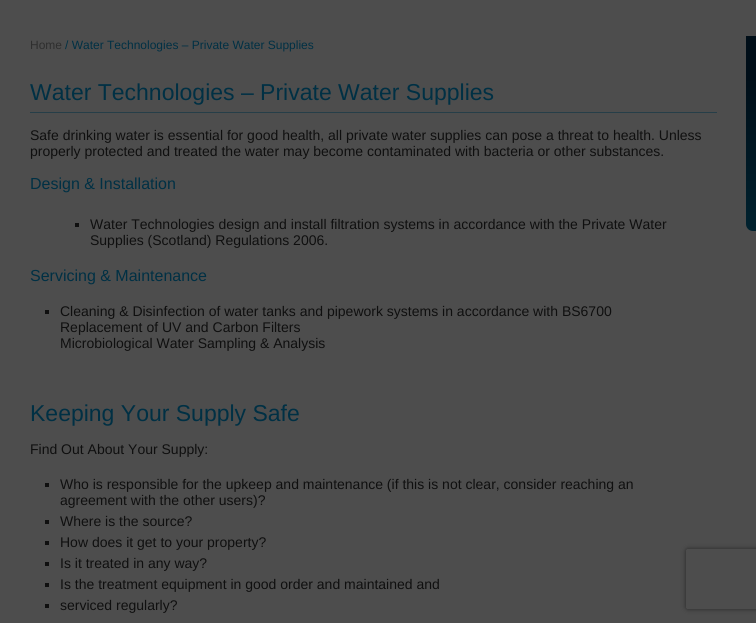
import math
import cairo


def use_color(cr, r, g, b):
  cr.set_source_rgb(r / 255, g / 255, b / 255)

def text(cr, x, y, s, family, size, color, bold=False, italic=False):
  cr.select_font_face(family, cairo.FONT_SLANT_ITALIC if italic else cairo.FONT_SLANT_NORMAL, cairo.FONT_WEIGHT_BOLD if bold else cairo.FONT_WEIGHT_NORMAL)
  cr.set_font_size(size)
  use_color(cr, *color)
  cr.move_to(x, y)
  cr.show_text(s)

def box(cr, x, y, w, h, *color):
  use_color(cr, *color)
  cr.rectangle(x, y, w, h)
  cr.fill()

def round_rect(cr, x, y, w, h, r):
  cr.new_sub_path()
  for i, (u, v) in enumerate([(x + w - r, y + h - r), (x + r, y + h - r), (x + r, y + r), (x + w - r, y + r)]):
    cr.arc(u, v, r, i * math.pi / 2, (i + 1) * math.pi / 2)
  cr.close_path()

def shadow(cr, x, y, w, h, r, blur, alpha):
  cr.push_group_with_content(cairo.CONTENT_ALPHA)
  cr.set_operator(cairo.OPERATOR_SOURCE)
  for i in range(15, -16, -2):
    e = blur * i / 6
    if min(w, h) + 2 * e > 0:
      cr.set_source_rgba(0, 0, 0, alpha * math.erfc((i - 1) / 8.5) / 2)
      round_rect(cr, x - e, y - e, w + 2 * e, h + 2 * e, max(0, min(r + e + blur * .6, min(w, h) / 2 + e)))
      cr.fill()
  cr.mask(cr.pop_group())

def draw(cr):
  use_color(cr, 77, 77, 77)
  cr.paint()
  box(cr, 30, 112, 687, 1, 38, 62, 72)
  box(cr, 75, 223, 4, 4, 15, 15, 15)
  box(cr, 45, 310, 4, 4, 15, 15, 15)
  box(cr, 45, 483, 4, 4, 15, 15, 15)
  box(cr, 45, 520, 4, 4, 15, 15, 15)
  box(cr, 45, 541, 4, 4, 15, 15, 15)
  box(cr, 45, 562, 4, 4, 15, 15, 15)
  box(cr, 45, 583, 4, 4, 15, 15, 15)
  box(cr, 45, 604, 4, 4, 15, 15, 15)
  gradient = cairo.LinearGradient(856, 36, 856, 231)
  gradient.add_color_stop_rgba(0.21, 0, 0.055, 0.094, 1)
  gradient.add_color_stop_rgba(1, 0, 0.133, 0.184, 1)
  cr.set_source(gradient)
  cr.new_path()
  cr.move_to(746, 36)
  cr.line_to(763, 36)
  cr.line_to(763, 224)
  cr.curve_to(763, 228, 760, 231, 756, 231)
  cr.line_to(753, 231)
  cr.curve_to(749, 231, 746, 228, 746, 224)
  cr.close_path()
  cr.fill()
  cr.save()
  cr.set_fill_rule(cairo.FILL_RULE_EVEN_ODD)
  cr.new_path()
  cr.move_to(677, 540)
  cr.line_to(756, 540)
  cr.line_to(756, 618)
  cr.line_to(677, 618)
  cr.close_path()
  cr.move_to(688, 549)
  cr.line_to(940, 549)
  cr.curve_to(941, 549, 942, 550, 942, 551)
  cr.line_to(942, 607)
  cr.curve_to(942, 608, 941, 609, 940, 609)
  cr.line_to(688, 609)
  cr.curve_to(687, 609, 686, 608, 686, 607)
  cr.line_to(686, 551)
  cr.curve_to(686, 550, 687, 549, 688, 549)
  cr.close_path()
  cr.clip()
  use_color(cr, 38, 38, 38)
  shadow(cr, 686, 549, 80, 60, 2, 2.5, 1)
  cr.restore()
  text(cr, 30, 49, "Home", "Liberation Sans", 12, (46, 46, 46))
  text(cr, 65, 49, "/ Water Technologies – Private Water Supplies", "Liberation Sans", 12, (0, 48, 68))
  text(cr, 30, 100, "Water Technologies – Private Water Supplies", "Liberation Sans", 23, (0, 48, 68))
  text(cr, 30, 140, "Safe drinking water is essential for good health, all private water supplies can pose a threat to health. Unless", "Liberation Sans", 14, (15, 15, 15))
  text(cr, 30, 156, "properly protected and treated the water may become contaminated with bacteria or other substances.", "Liberation Sans", 14, (15, 15, 15))
  text(cr, 30, 189, "Design & Installation", "Liberation Sans", 16, (0, 48, 68))
  text(cr, 90, 229, "Water Technologies design and install filtration systems in accordance with the Private Water", "Liberation Sans", 14, (15, 15, 15))
  text(cr, 90, 245, "Supplies (Scotland) Regulations 2006.", "Liberation Sans", 14, (15, 15, 15))
  text(cr, 30, 281, "Servicing & Maintenance", "Liberation Sans", 16, (0, 48, 68))
  text(cr, 60, 316, "Cleaning & Disinfection of water tanks and pipework systems in accordance with BS6700", "Liberation Sans", 14, (15, 15, 15))
  text(cr, 60, 332, "Replacement of UV and Carbon Filters", "Liberation Sans", 14, (15, 15, 15))
  text(cr, 60, 348, "Microbiological Water Sampling & Analysis", "Liberation Sans", 14, (15, 15, 15))
  text(cr, 30, 421, "Keeping Your Supply Safe", "Liberation Sans", 23, (0, 48, 68))
  text(cr, 30, 454, "Find Out About Your Supply:", "Liberation Sans", 14, (15, 15, 15))
  text(cr, 60, 489, "Who is responsible for the upkeep and maintenance (if this is not clear, consider reaching an", "Liberation Sans", 14, (15, 15, 15))
  text(cr, 60, 505, "agreement with the other users)?", "Liberation Sans", 14, (15, 15, 15))
  text(cr, 60, 526, "Where is the source?", "Liberation Sans", 14, (15, 15, 15))
  text(cr, 60, 547, "How does it get to your property?", "Liberation Sans", 14, (15, 15, 15))
  text(cr, 60, 568, "Is it treated in any way?", "Liberation Sans", 14, (15, 15, 15))
  text(cr, 60, 589, "Is the treatment equipment in good order and maintained and", "Liberation Sans", 14, (15, 15, 15))
  text(cr, 60, 610, "serviced regularly?", "Liberation Sans", 14, (15, 15, 15))


surface = cairo.ImageSurface(cairo.FORMAT_RGB24, 756, 623)
cr = cairo.Context(surface)
options = cairo.FontOptions()
options.set_hint_metrics(cairo.HINT_METRICS_OFF)
options.set_hint_style(cairo.HINT_STYLE_NONE)
cr.set_font_options(options)
cr.set_miter_limit(4)
draw(cr)
surface.write_to_png("out.png")
